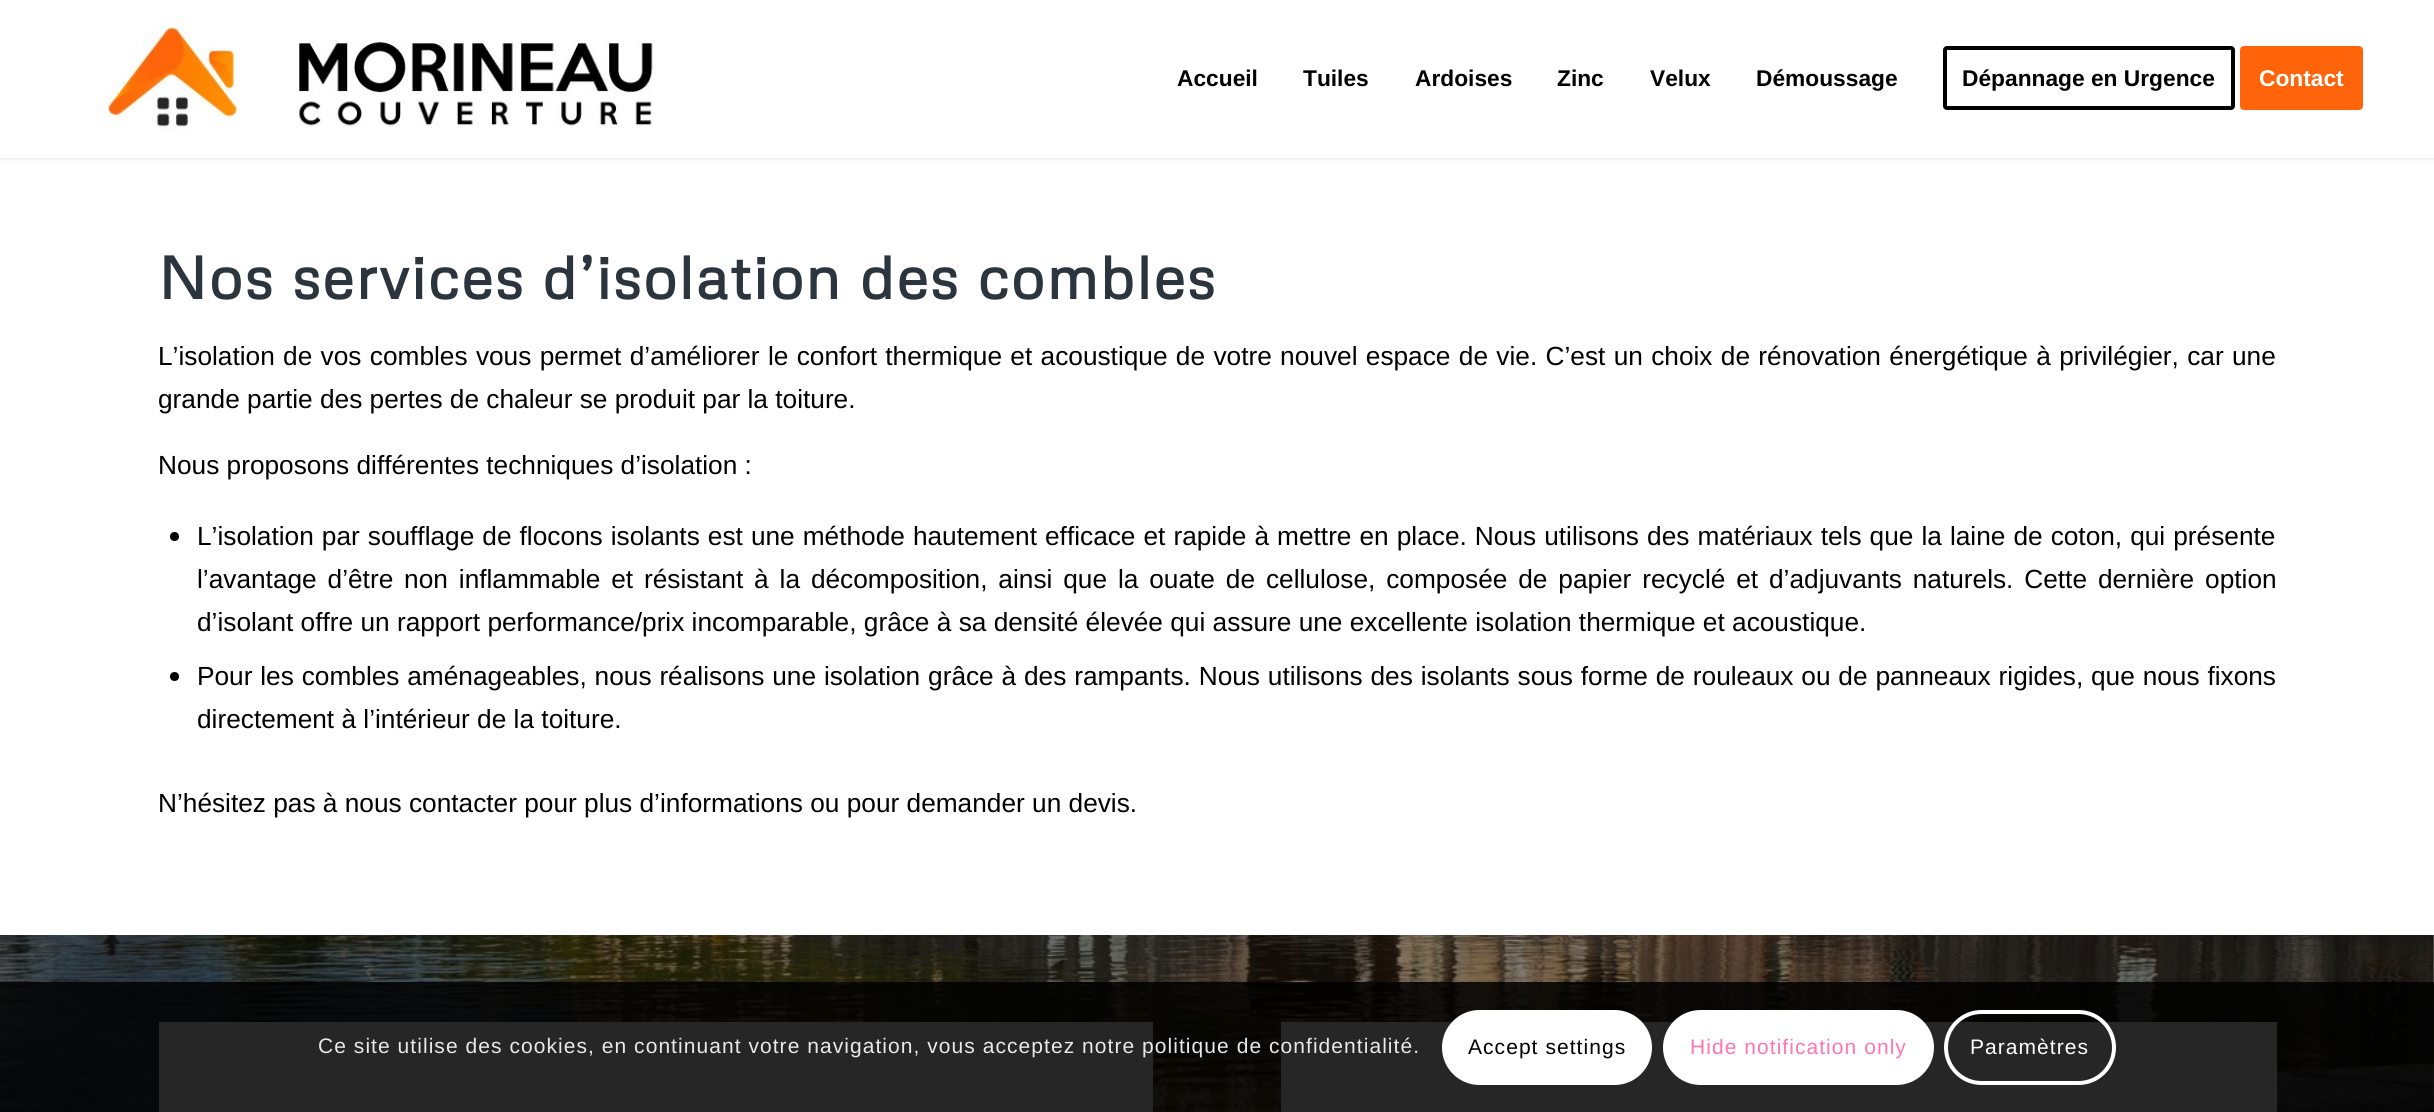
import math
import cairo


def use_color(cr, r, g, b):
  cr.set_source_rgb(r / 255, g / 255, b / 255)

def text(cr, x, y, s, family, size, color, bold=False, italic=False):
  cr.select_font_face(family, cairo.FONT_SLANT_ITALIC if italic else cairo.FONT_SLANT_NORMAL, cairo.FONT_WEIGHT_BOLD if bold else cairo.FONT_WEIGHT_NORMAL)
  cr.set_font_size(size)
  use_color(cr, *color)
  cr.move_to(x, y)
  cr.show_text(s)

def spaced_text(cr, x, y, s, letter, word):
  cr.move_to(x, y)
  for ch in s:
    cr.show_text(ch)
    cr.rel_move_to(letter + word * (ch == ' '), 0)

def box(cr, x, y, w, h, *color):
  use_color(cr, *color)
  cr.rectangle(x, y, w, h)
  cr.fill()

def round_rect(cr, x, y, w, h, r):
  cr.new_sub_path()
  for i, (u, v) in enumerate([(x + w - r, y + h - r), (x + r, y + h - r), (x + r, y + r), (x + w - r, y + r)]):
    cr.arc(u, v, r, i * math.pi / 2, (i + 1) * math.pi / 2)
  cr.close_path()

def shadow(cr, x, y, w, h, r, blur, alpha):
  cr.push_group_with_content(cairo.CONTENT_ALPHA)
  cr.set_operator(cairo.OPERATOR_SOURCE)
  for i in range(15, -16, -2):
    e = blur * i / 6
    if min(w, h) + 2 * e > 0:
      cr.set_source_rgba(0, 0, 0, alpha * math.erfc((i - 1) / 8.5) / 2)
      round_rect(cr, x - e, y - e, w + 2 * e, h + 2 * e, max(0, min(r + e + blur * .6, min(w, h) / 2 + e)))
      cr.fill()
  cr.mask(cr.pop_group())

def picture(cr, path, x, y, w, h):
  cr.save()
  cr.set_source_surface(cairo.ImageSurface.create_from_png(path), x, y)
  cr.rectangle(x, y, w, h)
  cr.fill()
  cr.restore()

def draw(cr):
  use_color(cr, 255, 255, 255)
  cr.paint()
  use_color(cr, 0, 0, 0)
  shadow(cr, -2, -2, 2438, 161, 0, 2, 0.1)
  box(cr, 0, 0, 2434, 158, 255, 255, 255)
  picture(cr, "img_01.png", 96, 16, 561, 117)
  round_rect(cr, 1945, 48, 288, 60, 2)
  use_color(cr, 0, 0, 0)
  cr.set_line_width(4)
  cr.stroke()
  use_color(cr, 255, 100, 11)
  round_rect(cr, 2242, 48, 119, 60, 2)
  cr.fill_preserve()
  cr.stroke()
  use_color(cr, 0, 0, 0)
  cr.arc(174.5, 536.5, 4.5, 0, 2 * math.pi)
  cr.fill()
  cr.arc(174.5, 676.5, 4.5, 0, 2 * math.pi)
  cr.fill()
  picture(cr, "img_02.png", 0, 935, 2434, 177)
  box(cr, 159, 1022, 994, 90, 255, 255, 255)
  box(cr, 1281, 1022, 996, 90, 255, 255, 255)
  cr.set_source_rgba(0, 0, 0, 0.85)
  cr.rectangle(0, 982, 2434, 130)
  cr.fill()
  use_color(cr, 255, 255, 255)
  round_rect(cr, 1442, 1010, 210, 75, 37.5)
  cr.fill()
  round_rect(cr, 1665, 1012, 267, 71, 35.5)
  cr.fill_preserve()
  cr.stroke()
  round_rect(cr, 1946, 1012, 168, 71, 35.5)
  cr.stroke()
  text(cr, 1177, 86, "Accueil", "Liberation Sans", 22.75, (0, 0, 0), bold=True)
  text(cr, 1303, 86, "Tuiles", "Liberation Sans", 22.75, (0, 0, 0), bold=True)
  text(cr, 1415, 86, "Ardoises", "Liberation Sans", 22.75, (0, 0, 0), bold=True)
  text(cr, 1557, 86, "Zinc", "Liberation Sans", 22.75, (0, 0, 0), bold=True)
  text(cr, 1650, 86, "Velux", "Liberation Sans", 22.75, (0, 0, 0), bold=True)
  text(cr, 1756, 86, "Démoussage", "Liberation Sans", 22.75, (0, 0, 0), bold=True)
  text(cr, 1962, 86, "Dépannage en Urgence", "Liberation Sans", 22.75, (0, 0, 0), bold=True)
  text(cr, 2259, 86, "Contact", "Liberation Sans", 22.75, (255, 255, 255), bold=True)
  cr.select_font_face("Metrophobic", cairo.FONT_SLANT_NORMAL, cairo.FONT_WEIGHT_BOLD)
  cr.set_font_size(59.5)
  use_color(cr, 44, 53, 61)
  spaced_text(cr, 158, 299, "Nos services d’isolation des combles", 1.75, 0)
  cr.select_font_face("Liberation Sans")
  cr.set_font_size(26.25)
  use_color(cr, 0, 0, 0)
  spaced_text(cr, 158, 365, "L’isolation de vos combles vous permet d’améliorer le confort thermique et acoustique de votre nouvel espace de vie. C’est un choix de rénovation énergétique à privilégier, car une", 0, 1.05)
  text(cr, 158, 408, "grande partie des pertes de chaleur se produit par la toiture.", "Liberation Sans", 26.25, (0, 0, 0))
  text(cr, 158, 474, "Nous proposons différentes techniques d’isolation :", "Liberation Sans", 26.25, (0, 0, 0))
  spaced_text(cr, 197, 545, "L’isolation par soufflage de flocons isolants est une méthode hautement efficace et rapide à mettre en place. Nous utilisons des matériaux tels que la laine de coton, qui présente", 0, 0.75)
  spaced_text(cr, 197, 588, "l’avantage d’être non inflammable et résistant à la décomposition, ainsi que la ouate de cellulose, composée de papier recyclé et d’adjuvants naturels. Cette dernière option", 0, 3.6)
  text(cr, 197, 631, "d’isolant offre un rapport performance/prix incomparable, grâce à sa densité élevée qui assure une excellente isolation thermique et acoustique.", "Liberation Sans", 26.25, (0, 0, 0))
  spaced_text(cr, 197, 685, "Pour les combles aménageables, nous réalisons une isolation grâce à des rampants. Nous utilisons des isolants sous forme de rouleaux ou de panneaux rigides, que nous fixons", 0, 0.55)
  text(cr, 197, 728, "directement à l’intérieur de la toiture.", "Liberation Sans", 26.25, (0, 0, 0))
  text(cr, 158, 812, "N’hésitez pas à nous contacter pour plus d’informations ou pour demander un devis.", "Liberation Sans", 26.25, (0, 0, 0))
  cr.set_font_size(21)
  use_color(cr, 233, 233, 233)
  spaced_text(cr, 318, 1053, "Ce site utilise des cookies, en continuant votre navigation, vous acceptez notre politique de confidentialité.", 1.05, 0)
  use_color(cr, 0, 0, 0)
  spaced_text(cr, 1468, 1054, "Accept settings", 1.05, 0)
  use_color(cr, 255, 117, 181)
  spaced_text(cr, 1690, 1054, "Hide notification only", 1.05, 0)
  use_color(cr, 255, 255, 255)
  spaced_text(cr, 1970, 1054, "Paramètres", 1.05, 0)


surface = cairo.ImageSurface(cairo.FORMAT_RGB24, 2434, 1112)
cr = cairo.Context(surface)
options = cairo.FontOptions()
options.set_hint_metrics(cairo.HINT_METRICS_OFF)
options.set_hint_style(cairo.HINT_STYLE_NONE)
cr.set_font_options(options)
cr.set_miter_limit(4)
draw(cr)
surface.write_to_png("out.png")
